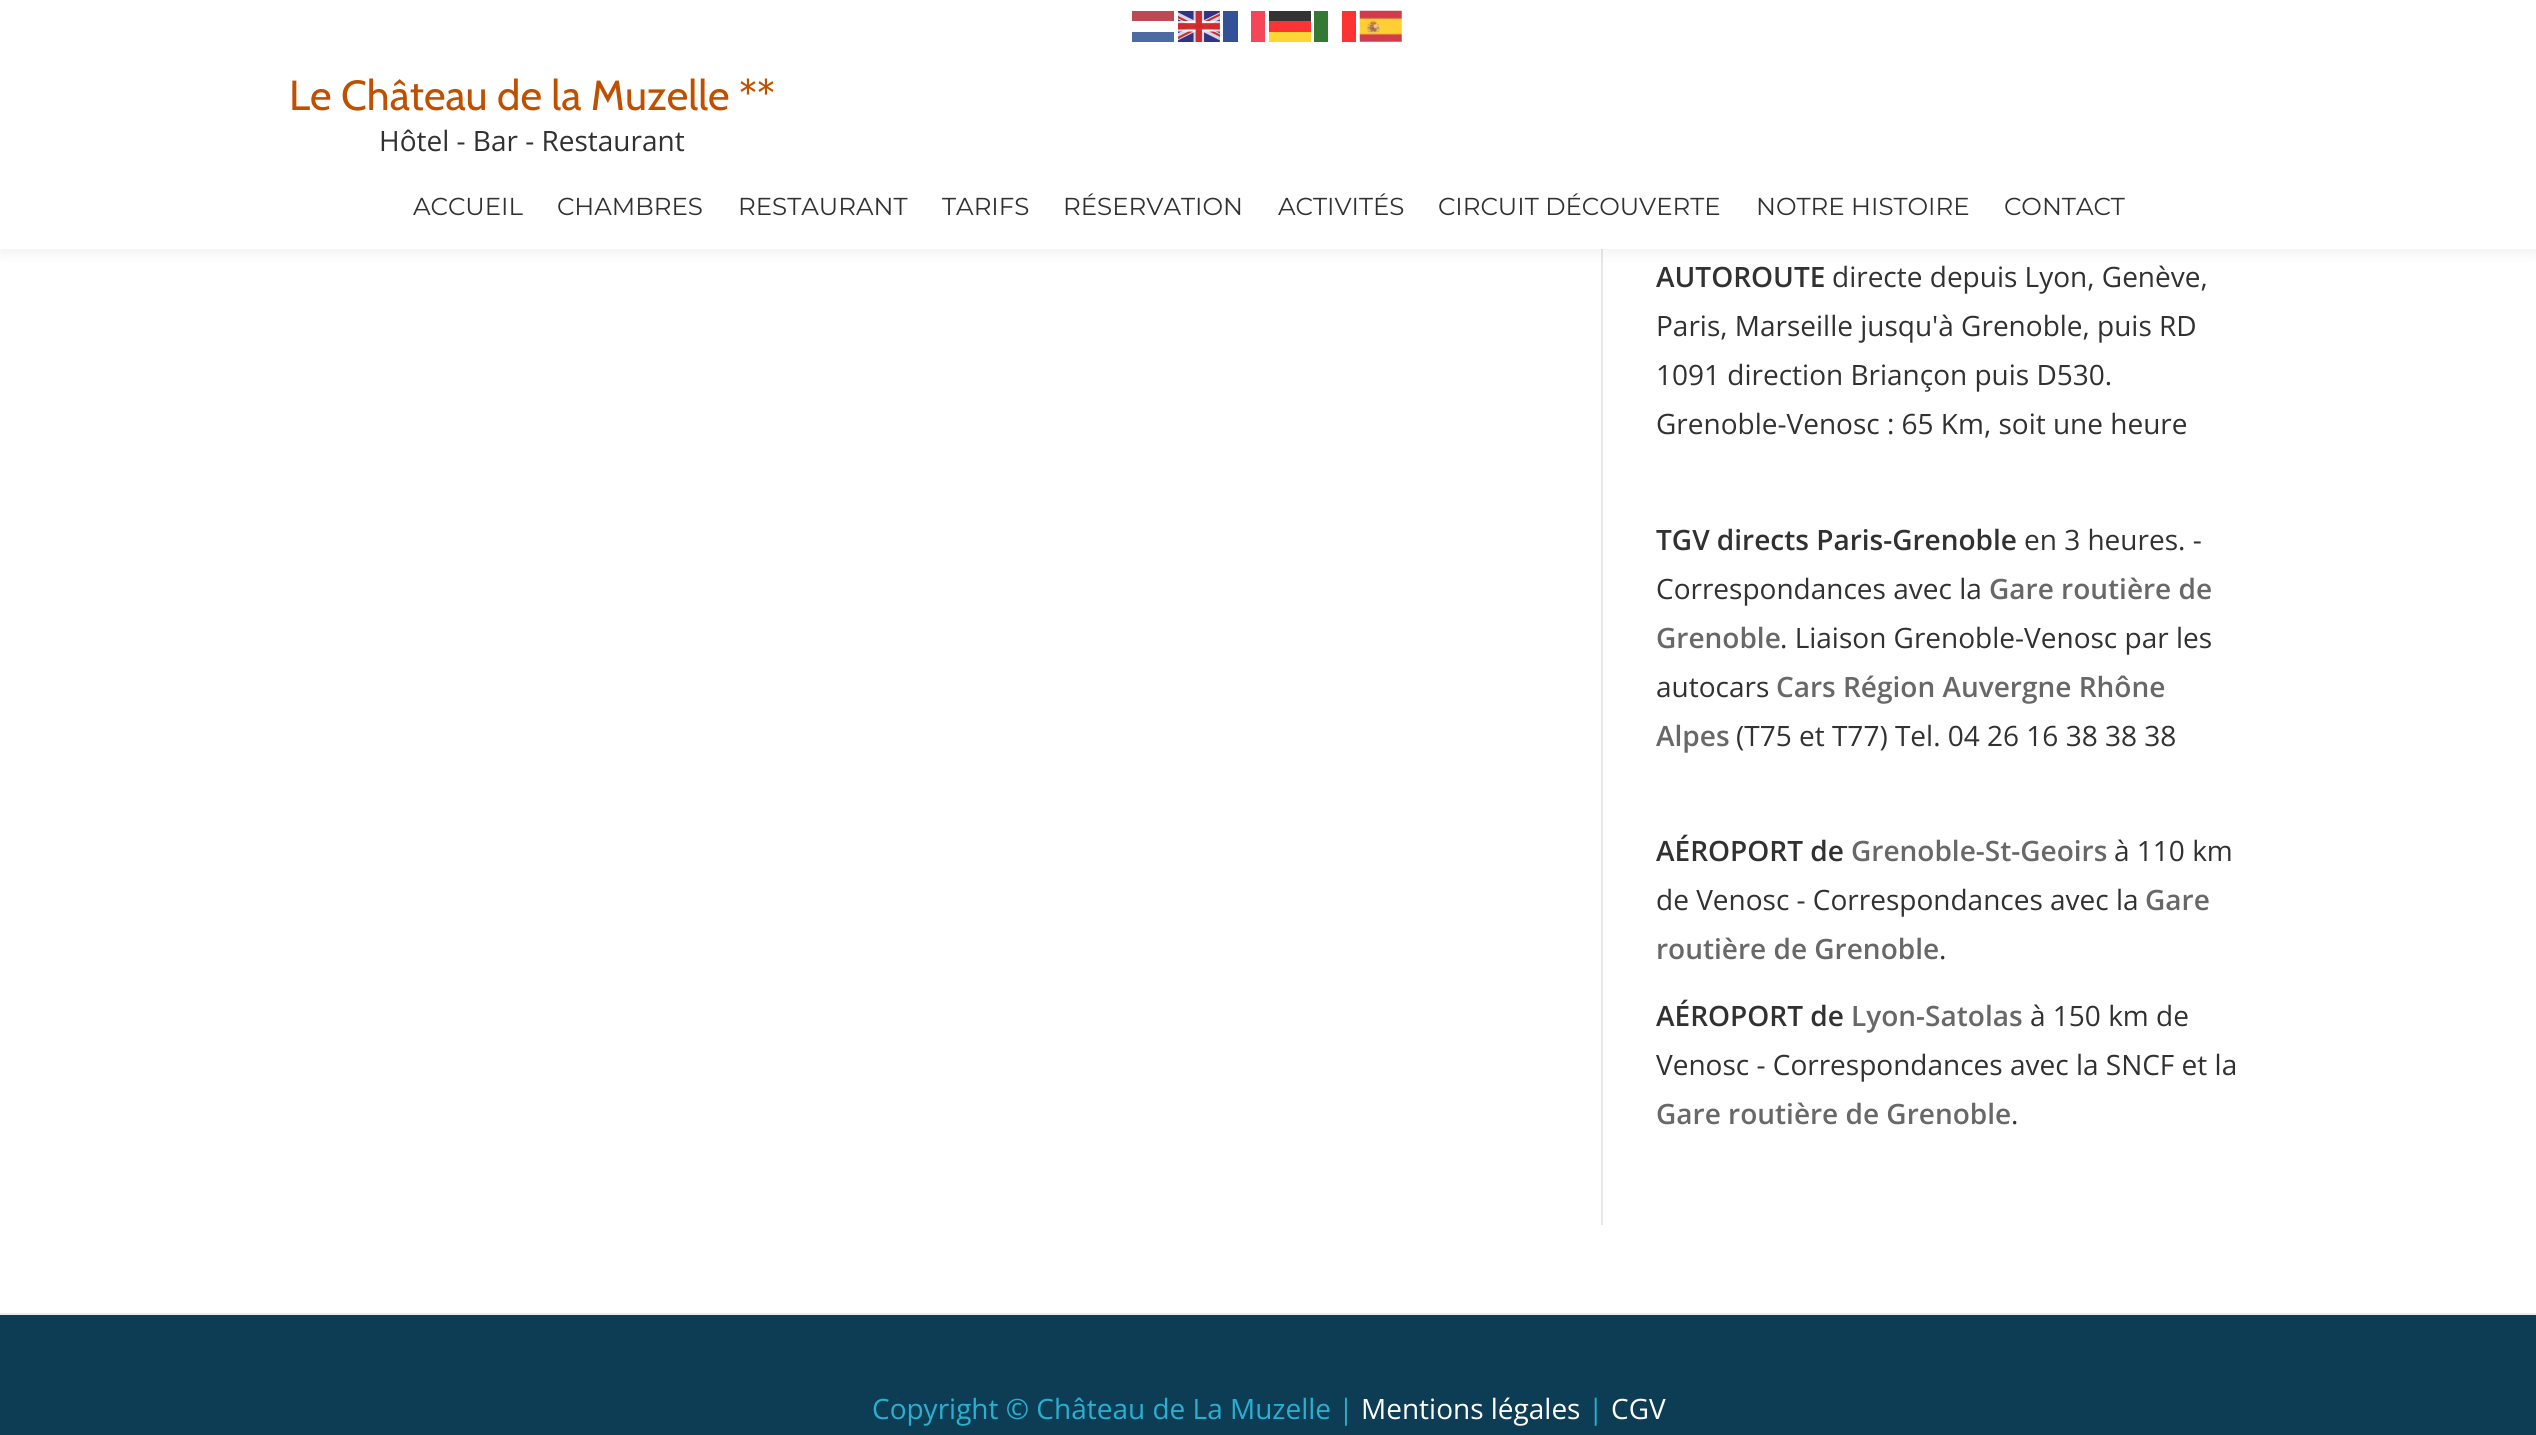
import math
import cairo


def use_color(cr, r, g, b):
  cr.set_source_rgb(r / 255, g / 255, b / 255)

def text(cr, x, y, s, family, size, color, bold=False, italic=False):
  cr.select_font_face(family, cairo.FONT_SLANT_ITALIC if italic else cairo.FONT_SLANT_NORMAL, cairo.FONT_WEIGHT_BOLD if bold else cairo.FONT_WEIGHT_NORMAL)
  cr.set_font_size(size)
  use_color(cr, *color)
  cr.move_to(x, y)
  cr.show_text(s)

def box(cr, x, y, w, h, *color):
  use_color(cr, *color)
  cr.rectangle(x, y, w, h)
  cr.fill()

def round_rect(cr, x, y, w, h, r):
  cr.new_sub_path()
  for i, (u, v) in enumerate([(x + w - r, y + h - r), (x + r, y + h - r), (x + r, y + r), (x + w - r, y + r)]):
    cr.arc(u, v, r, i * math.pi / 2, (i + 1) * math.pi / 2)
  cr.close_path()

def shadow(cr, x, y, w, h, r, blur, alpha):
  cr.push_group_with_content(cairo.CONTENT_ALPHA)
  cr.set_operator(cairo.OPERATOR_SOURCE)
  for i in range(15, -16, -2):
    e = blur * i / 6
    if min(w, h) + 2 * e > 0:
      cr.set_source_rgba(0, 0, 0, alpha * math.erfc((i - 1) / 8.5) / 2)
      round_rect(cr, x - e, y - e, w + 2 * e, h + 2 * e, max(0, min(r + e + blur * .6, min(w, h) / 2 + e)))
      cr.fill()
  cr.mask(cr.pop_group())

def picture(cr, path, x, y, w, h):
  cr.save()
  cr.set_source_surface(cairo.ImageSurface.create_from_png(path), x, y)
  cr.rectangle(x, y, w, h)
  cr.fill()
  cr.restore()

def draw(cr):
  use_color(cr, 255, 255, 255)
  cr.paint()
  box(cr, 1601, 249, 2, 976, 231, 231, 231)
  use_color(cr, 50, 50, 50)
  shadow(cr, 0, -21, 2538, 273, 0, 7, 0.08)
  box(cr, 0, 0, 2536, 249, 255, 255, 255)
  box(cr, 1132, 11, 42, 10, 190, 73, 83)
  picture(cr, "img_01.png", 1178, 11, 42, 31)
  box(cr, 1223, 11, 15, 31, 51, 81, 153)
  box(cr, 1251, 11, 14, 31, 245, 70, 89)
  box(cr, 1269, 11, 42, 10, 51, 51, 51)
  box(cr, 1314, 11, 14, 31, 51, 121, 51)
  box(cr, 1342, 11, 14, 31, 253, 51, 51)
  picture(cr, "img_02.png", 1359, 10, 43, 32)
  box(cr, 1269, 21, 42, 11, 255, 51, 51)
  box(cr, 1132, 32, 42, 10, 77, 107, 162)
  box(cr, 1269, 32, 42, 10, 255, 214, 51)
  box(cr, 0, 1315, 2536, 120, 13, 60, 85)
  box(cr, 0, 1313, 2536, 2, 234, 235, 236)
  text(cr, 289, 110, "Le Château de la Muzelle **", "Cabin", 42, (190, 80, 0))
  text(cr, 379, 151, "Hôtel - Bar - Restaurant", "Open Sans", 28, (49, 49, 49))
  text(cr, 413, 215, "ACCUEIL", "Montserrat", 24.5, (49, 49, 49))
  text(cr, 557, 215, "CHAMBRES", "Montserrat", 24.5, (49, 49, 49))
  text(cr, 738, 215, "RESTAURANT", "Montserrat", 24.5, (49, 49, 49))
  text(cr, 942, 215, "TARIFS", "Montserrat", 24.5, (49, 49, 49))
  text(cr, 1063, 215, "RÉSERVATION", "Montserrat", 24.5, (49, 49, 49))
  text(cr, 1278, 215, "ACTIVITÉS", "Montserrat", 24.5, (49, 49, 49))
  text(cr, 1438, 215, "CIRCUIT DÉCOUVERTE", "Montserrat", 24.5, (49, 49, 49))
  text(cr, 1756, 215, "NOTRE HISTOIRE", "Montserrat", 24.5, (49, 49, 49))
  text(cr, 2004, 215, "CONTACT", "Montserrat", 24.5, (49, 49, 49))
  text(cr, 1656, 287, "AUTOROUTE", "Open Sans SemiBold", 28, (49, 49, 49))
  text(cr, 1832, 287, "directe depuis Lyon, Genève,", "Open Sans", 28, (49, 49, 49))
  text(cr, 1656, 336, "Paris, Marseille jusqu'à Grenoble, puis RD", "Open Sans", 28, (49, 49, 49))
  text(cr, 1656, 385, "1091 direction Briançon puis D530.", "Open Sans", 28, (49, 49, 49))
  text(cr, 1656, 434, "Grenoble-Venosc : 65 Km, soit une heure", "Open Sans", 28, (49, 49, 49))
  text(cr, 1656, 550, "TGV directs Paris-Grenoble", "Open Sans SemiBold", 28, (49, 49, 49))
  text(cr, 2024, 550, "en 3 heures. -", "Open Sans", 28, (49, 49, 49))
  text(cr, 1656, 599, "Correspondances avec la", "Open Sans", 28, (49, 49, 49))
  text(cr, 1989, 599, "Gare routière de", "Open Sans SemiBold", 28, (104, 104, 104))
  text(cr, 1656, 648, "Grenoble", "Open Sans SemiBold", 28, (104, 104, 104))
  text(cr, 1780, 648, ". Liaison Grenoble-Venosc par les", "Open Sans", 28, (49, 49, 49))
  text(cr, 1656, 697, "autocars", "Open Sans", 28, (49, 49, 49))
  text(cr, 1776, 697, "Cars Région Auvergne Rhône", "Open Sans SemiBold", 28, (104, 104, 104))
  text(cr, 1656, 746, "Alpes", "Open Sans SemiBold", 28, (104, 104, 104))
  text(cr, 1736, 746, "(T75 et T77) Tel. 04 26 16 38 38 38", "Open Sans", 28, (49, 49, 49))
  text(cr, 1656, 861, "AÉROPORT de", "Open Sans SemiBold", 28, (49, 49, 49))
  text(cr, 1851, 861, "Grenoble-St-Geoirs", "Open Sans SemiBold", 28, (104, 104, 104))
  text(cr, 2114, 861, "à 110 km", "Open Sans", 28, (49, 49, 49))
  text(cr, 1656, 910, "de Venosc - Correspondances avec la", "Open Sans", 28, (49, 49, 49))
  text(cr, 2145, 910, "Gare", "Open Sans SemiBold", 28, (104, 104, 104))
  text(cr, 1656, 959, "routière de Grenoble", "Open Sans SemiBold", 28, (104, 104, 104))
  text(cr, 1939, 959, ".", "Open Sans", 28, (49, 49, 49))
  text(cr, 1656, 1026, "AÉROPORT de", "Open Sans SemiBold", 28, (49, 49, 49))
  text(cr, 1851, 1026, "Lyon-Satolas", "Open Sans SemiBold", 28, (104, 104, 104))
  text(cr, 2030, 1026, "à 150 km de", "Open Sans", 28, (49, 49, 49))
  text(cr, 1656, 1075, "Venosc - Correspondances avec la SNCF et la", "Open Sans", 28, (49, 49, 49))
  text(cr, 1656, 1124, "Gare routière de Grenoble", "Open Sans SemiBold", 28, (104, 104, 104))
  text(cr, 2011, 1124, ".", "Open Sans", 28, (49, 49, 49))
  text(cr, 872, 1419, "Copyright © Château de La Muzelle |", "Open Sans", 28, (41, 176, 208))
  text(cr, 1361, 1419, "Mentions légales", "Open Sans", 28, (255, 255, 255))
  text(cr, 1588, 1419, "|", "Open Sans", 28, (41, 176, 208))
  text(cr, 1611, 1419, "CGV", "Open Sans", 28, (255, 255, 255))


surface = cairo.ImageSurface(cairo.FORMAT_RGB24, 2536, 1435)
cr = cairo.Context(surface)
options = cairo.FontOptions()
options.set_hint_metrics(cairo.HINT_METRICS_OFF)
options.set_hint_style(cairo.HINT_STYLE_NONE)
cr.set_font_options(options)
cr.set_miter_limit(4)
draw(cr)
surface.write_to_png("out.png")
